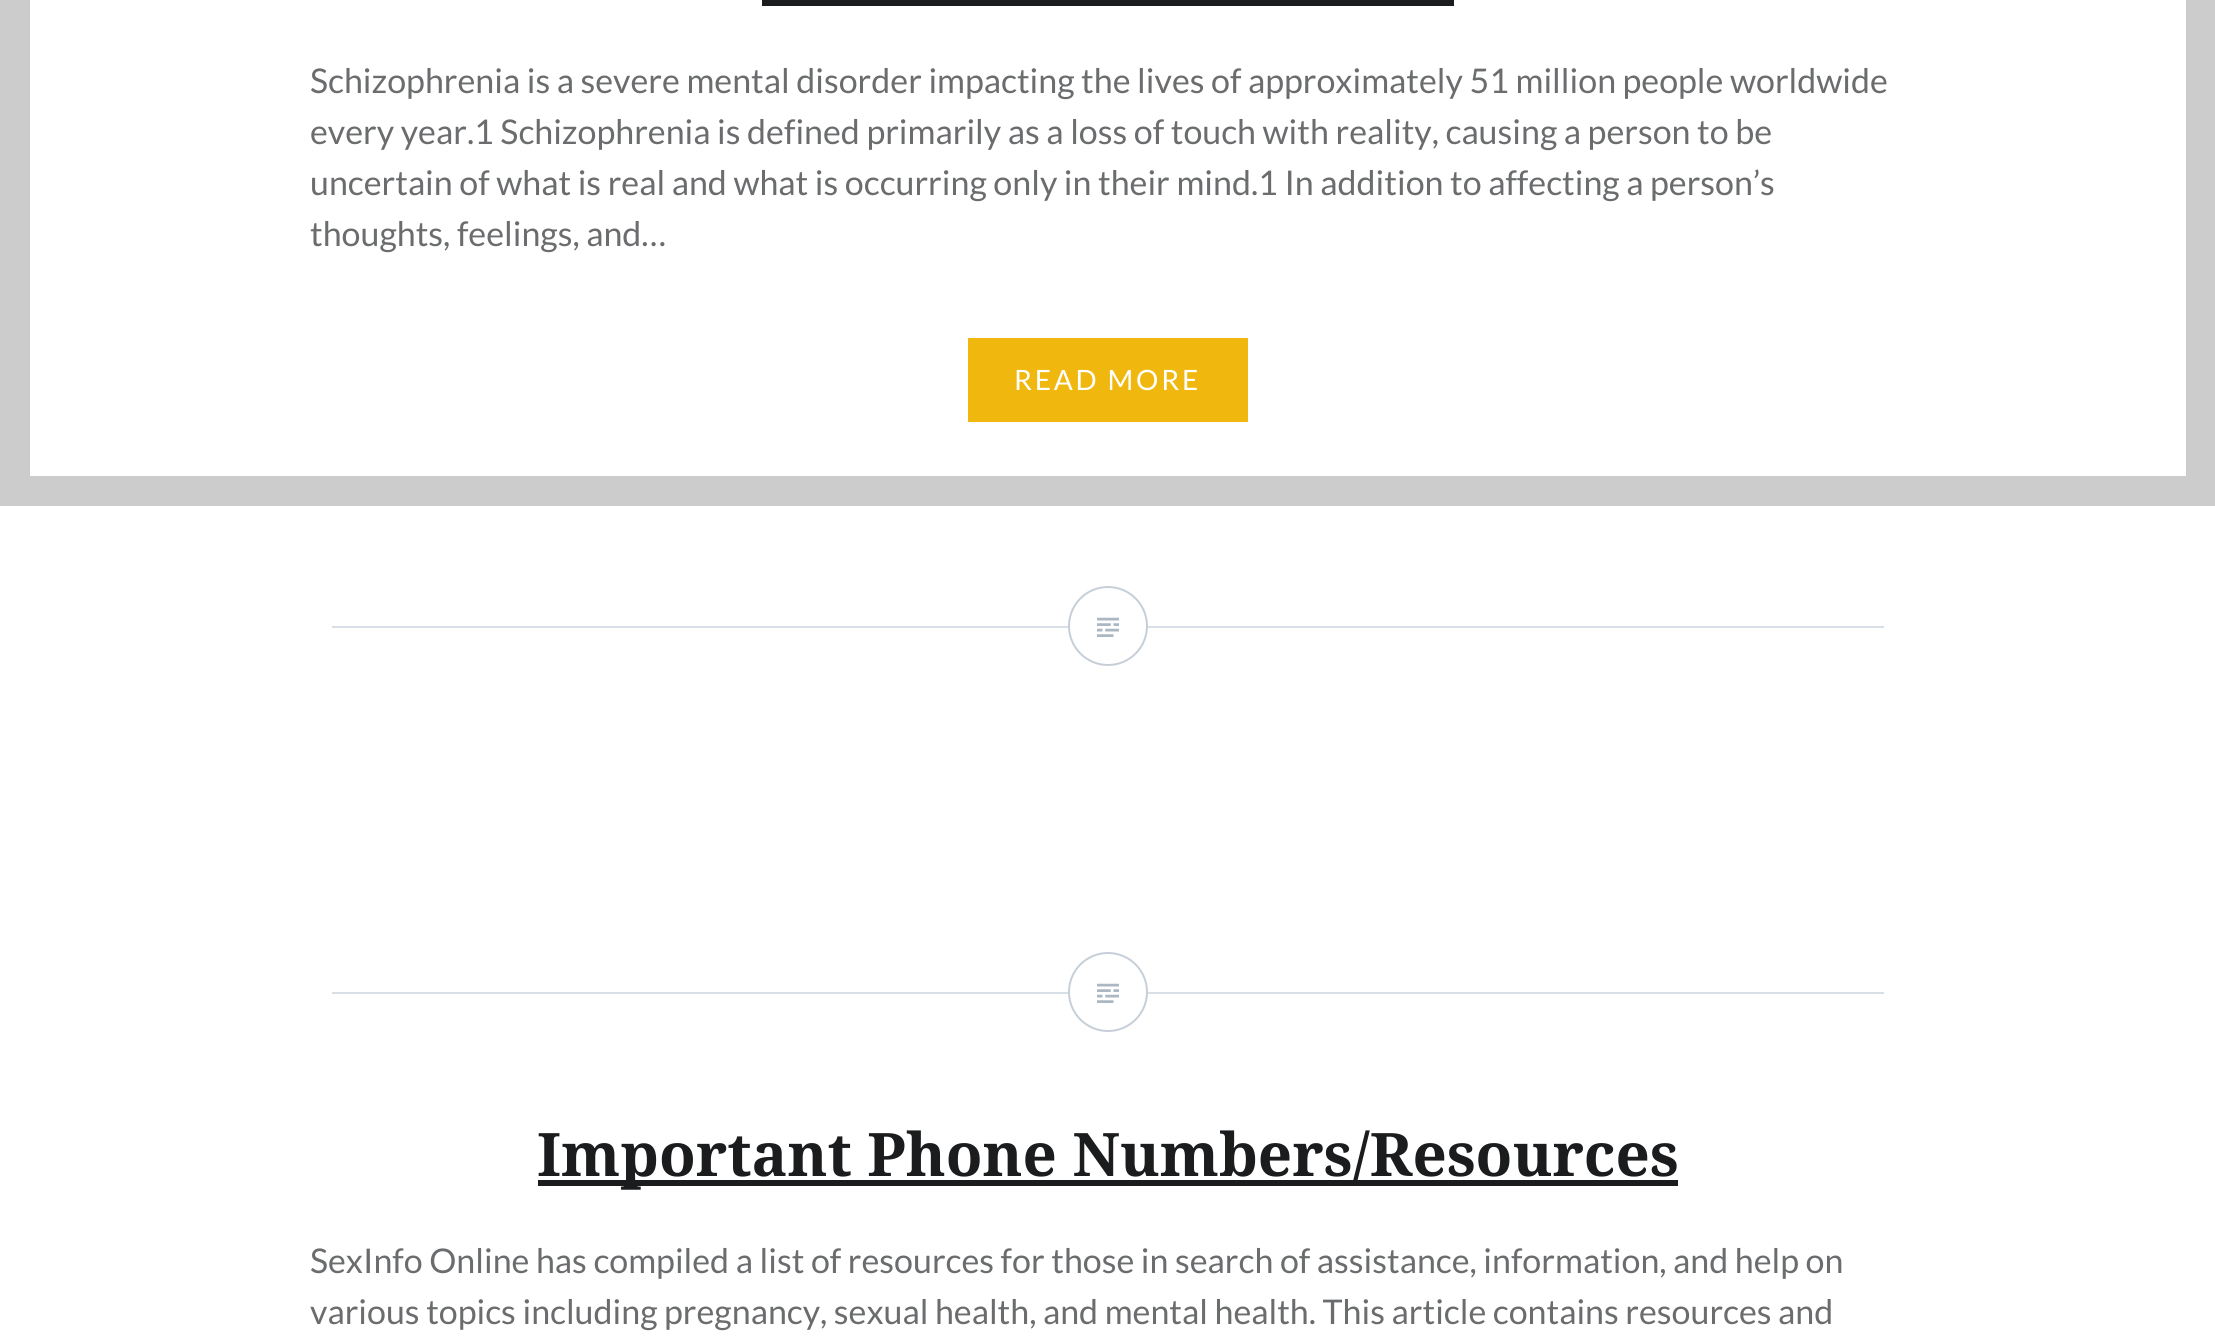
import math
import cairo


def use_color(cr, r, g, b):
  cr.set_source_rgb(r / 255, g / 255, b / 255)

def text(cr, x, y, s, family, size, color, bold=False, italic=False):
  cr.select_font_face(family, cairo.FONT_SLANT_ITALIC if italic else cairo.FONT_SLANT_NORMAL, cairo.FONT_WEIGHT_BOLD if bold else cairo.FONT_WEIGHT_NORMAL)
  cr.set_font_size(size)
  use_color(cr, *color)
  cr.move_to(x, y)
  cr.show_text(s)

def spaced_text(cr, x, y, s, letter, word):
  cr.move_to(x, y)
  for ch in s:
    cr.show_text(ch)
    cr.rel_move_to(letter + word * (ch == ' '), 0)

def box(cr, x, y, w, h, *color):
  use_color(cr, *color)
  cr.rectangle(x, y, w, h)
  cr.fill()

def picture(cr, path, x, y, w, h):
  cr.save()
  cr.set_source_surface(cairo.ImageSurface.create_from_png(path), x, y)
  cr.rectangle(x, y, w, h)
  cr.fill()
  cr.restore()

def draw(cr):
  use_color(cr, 255, 255, 255)
  cr.paint()
  box(cr, 762, 0, 692, 6, 26, 28, 30)
  box(cr, 968, 338, 280, 84, 240, 184, 14)
  cr.rectangle(15, -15, 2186, 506)
  use_color(cr, 204, 204, 204)
  cr.set_line_width(30)
  cr.stroke()
  box(cr, 332, 626, 1552, 2, 216, 223, 230)
  use_color(cr, 255, 255, 255)
  cr.arc(1108, 626, 39, 0, 2 * math.pi)
  cr.fill_preserve()
  use_color(cr, 198, 207, 216)
  cr.set_line_width(2)
  cr.stroke()
  picture(cr, "img_01.png", 1097, 617, 22, 20)
  box(cr, 332, 992, 1552, 2, 216, 223, 230)
  use_color(cr, 255, 255, 255)
  cr.arc(1108, 992, 39, 0, 2 * math.pi)
  cr.fill_preserve()
  use_color(cr, 198, 207, 216)
  cr.stroke()
  picture(cr, "img_01.png", 1097, 983, 22, 20)
  box(cr, 538, 1180, 1140, 6, 26, 28, 30)
  text(cr, 310, 93, "Schizophrenia is a severe mental disorder impacting the lives of approximately 51 million people worldwide", "Lato", 34, (106, 108, 110))
  text(cr, 310, 144, "every year.1 Schizophrenia is defined primarily as a loss of touch with reality, causing a person to be", "Lato", 34, (106, 108, 110))
  text(cr, 310, 195, "uncertain of what is real and what is occurring only in their mind.1 In addition to affecting a person’s", "Lato", 34, (106, 108, 110))
  text(cr, 310, 246, "thoughts, feelings, and…", "Lato", 34, (106, 108, 110))
  cr.set_font_size(28)
  use_color(cr, 255, 255, 255)
  spaced_text(cr, 1014, 390, "READ MORE", 2.75, 0)
  text(cr, 537, 1176, "Important Phone Numbers/Resources", "Noto Serif", 60, (26, 28, 30), bold=True)
  text(cr, 310, 1273, "SexInfo Online has compiled a list of resources for those in search of assistance, information, and help on", "Lato", 34, (106, 108, 110))
  text(cr, 310, 1324, "various topics including pregnancy, sexual health, and mental health. This article contains resources and", "Lato", 34, (106, 108, 110))


surface = cairo.ImageSurface(cairo.FORMAT_RGB24, 2215, 1344)
cr = cairo.Context(surface)
options = cairo.FontOptions()
options.set_hint_metrics(cairo.HINT_METRICS_OFF)
options.set_hint_style(cairo.HINT_STYLE_NONE)
cr.set_font_options(options)
cr.set_miter_limit(4)
draw(cr)
surface.write_to_png("out.png")
